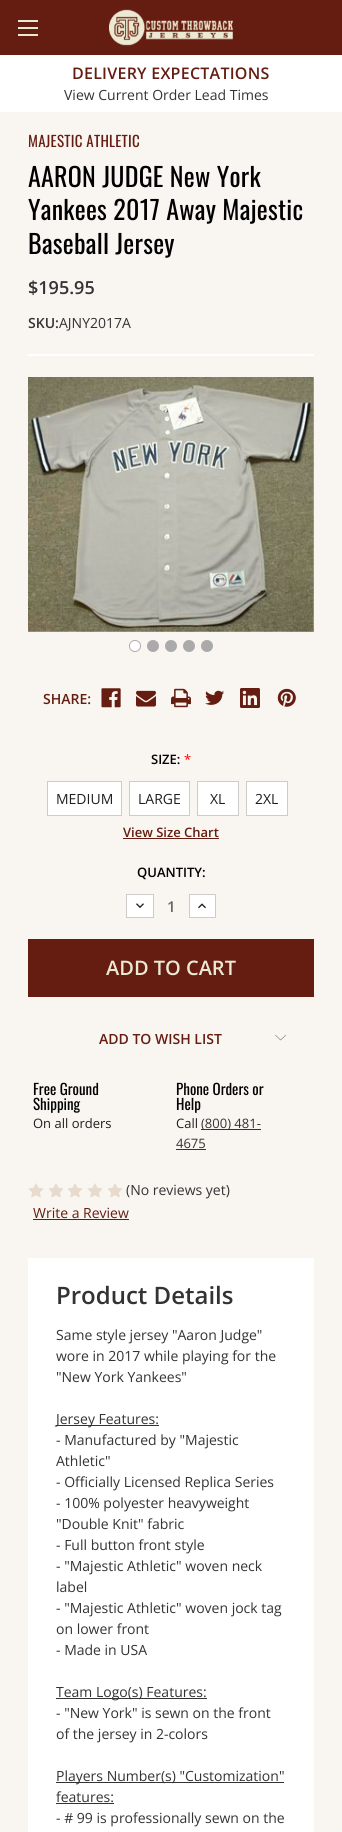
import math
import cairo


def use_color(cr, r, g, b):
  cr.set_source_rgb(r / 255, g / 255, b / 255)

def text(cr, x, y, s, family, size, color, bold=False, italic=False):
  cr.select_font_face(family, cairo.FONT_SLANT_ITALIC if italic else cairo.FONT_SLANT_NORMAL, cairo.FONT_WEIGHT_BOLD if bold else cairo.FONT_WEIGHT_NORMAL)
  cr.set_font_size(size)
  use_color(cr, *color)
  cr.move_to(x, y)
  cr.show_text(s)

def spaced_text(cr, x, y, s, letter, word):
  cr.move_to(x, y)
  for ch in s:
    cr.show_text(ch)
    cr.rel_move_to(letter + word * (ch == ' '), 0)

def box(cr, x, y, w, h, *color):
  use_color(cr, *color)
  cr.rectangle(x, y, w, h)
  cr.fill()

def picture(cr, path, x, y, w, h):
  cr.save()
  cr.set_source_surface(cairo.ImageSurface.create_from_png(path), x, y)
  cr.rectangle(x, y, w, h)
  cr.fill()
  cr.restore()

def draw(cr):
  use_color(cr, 249, 246, 242)
  cr.paint()
  box(cr, 0, 0, 342, 55, 101, 29, 17)
  box(cr, 18, 27, 20, 2, 235, 233, 211)
  box(cr, 18, 20, 20, 2, 235, 233, 211)
  box(cr, 18, 34, 20, 2, 235, 233, 211)
  picture(cr, "img_01.png", 109, 9, 124, 37)
  box(cr, 0, 55, 342, 57, 255, 255, 255)
  box(cr, 28, 354, 286, 2, 255, 255, 255)
  picture(cr, "img_02.png", 28, 377, 286, 255)
  use_color(cr, 170, 170, 170)
  cr.arc(135, 646, 6, 0, 2 * math.pi)
  cr.fill()
  use_color(cr, 255, 255, 255)
  cr.arc(135, 646, 5, 0, 2 * math.pi)
  cr.fill()
  use_color(cr, 170, 170, 170)
  cr.arc(153, 646, 6, 0, 2 * math.pi)
  cr.fill()
  cr.arc(171, 646, 6, 0, 2 * math.pi)
  cr.fill()
  cr.arc(189, 646, 6, 0, 2 * math.pi)
  cr.fill()
  cr.arc(207, 646, 6, 0, 2 * math.pi)
  cr.fill()
  picture(cr, "img_03.png", 101, 688, 20, 20)
  picture(cr, "img_04.png", 136, 690, 20, 17)
  picture(cr, "img_05.png", 171, 688, 20, 20)
  picture(cr, "img_06.png", 205, 690, 20, 15)
  picture(cr, "img_07.png", 240, 688, 20, 20)
  picture(cr, "img_08.png", 277, 688, 19, 19)
  use_color(cr, 255, 255, 255)
  cr.rectangle(47.5, 781.5, 74, 34)
  cr.fill_preserve()
  use_color(cr, 204, 204, 204)
  cr.set_line_width(1)
  cr.stroke()
  use_color(cr, 255, 255, 255)
  cr.rectangle(129.5, 781.5, 60, 34)
  cr.fill_preserve()
  use_color(cr, 204, 204, 204)
  cr.stroke()
  use_color(cr, 255, 255, 255)
  cr.rectangle(197.5, 781.5, 41, 34)
  cr.fill_preserve()
  use_color(cr, 204, 204, 204)
  cr.stroke()
  use_color(cr, 255, 255, 255)
  cr.rectangle(246.5, 781.5, 41, 34)
  cr.fill_preserve()
  use_color(cr, 204, 204, 204)
  cr.stroke()
  box(cr, 123, 838, 96, 1, 101, 29, 17)
  use_color(cr, 255, 255, 255)
  cr.rectangle(126.5, 894.5, 27, 23)
  cr.fill_preserve()
  use_color(cr, 204, 204, 204)
  cr.stroke()
  picture(cr, "img_09.png", 136, 903, 8, 5)
  use_color(cr, 255, 255, 255)
  cr.rectangle(189.5, 894.5, 26, 23)
  cr.fill_preserve()
  use_color(cr, 204, 204, 204)
  cr.stroke()
  picture(cr, "img_10.png", 198, 903, 8, 6)
  box(cr, 28, 939, 286, 58, 101, 29, 17)
  picture(cr, "img_11.png", 275, 1034, 11, 7)
  box(cr, 201, 1129, 60, 1, 51, 51, 51)
  box(cr, 176, 1149, 30, 1, 51, 51, 51)
  picture(cr, "img_12.png", 28, 1183, 16, 15)
  picture(cr, "img_12.png", 48, 1183, 16, 15)
  picture(cr, "img_12.png", 67, 1183, 16, 15)
  picture(cr, "img_12.png", 87, 1183, 16, 15)
  picture(cr, "img_12.png", 107, 1183, 16, 15)
  box(cr, 33, 1219, 96, 1, 101, 29, 17)
  box(cr, 28, 1258, 286, 574, 255, 255, 255)
  box(cr, 56, 1425, 103, 1, 51, 51, 51)
  box(cr, 56, 1698, 151, 1, 51, 51, 51)
  box(cr, 56, 1782, 228, 1, 51, 51, 51)
  box(cr, 56, 1803, 58, 1, 51, 51, 51)
  box(cr, 340, 1830, 2, 2, 245, 245, 245)
  cr.select_font_face("Open Sans SemiBold")
  cr.set_font_size(16)
  use_color(cr, 101, 29, 17)
  spaced_text(cr, 72, 79, "DELIVERY EXPECTATIONS", 0.25, 0)
  text(cr, 64, 100, "View Current Order Lead Times", "Open Sans", 14, (51, 51, 51))
  cr.select_font_face("Oswald")
  cr.set_font_size(15)
  use_color(cr, 101, 29, 17)
  spaced_text(cr, 28, 147, "MAJESTIC ATHLETIC", 0.25, 0)
  cr.set_font_size(26)
  use_color(cr, 0, 0, 0)
  spaced_text(cr, 28, 187, "AARON JUDGE New York", 0.25, 0)
  spaced_text(cr, 28, 220, "Yankees 2017 Away Majestic", 0.25, 0)
  spaced_text(cr, 28, 254, "Baseball Jersey", 0.25, 0)
  text(cr, 28, 294, "$195.95", "Open Sans SemiBold", 18, (51, 51, 51))
  text(cr, 28, 328, "SKU:", "Open Sans SemiBold", 14, (51, 51, 51))
  text(cr, 59, 328, "AJNY2017A", "Open Sans", 14, (51, 51, 51))
  text(cr, 43, 704, "SHARE:", "Open Sans SemiBold", 14, (101, 29, 17))
  text(cr, 151, 764, "SIZE:", "Open Sans SemiBold", 13, (0, 0, 0))
  text(cr, 184, 764, "*", "Open Sans", 13, (255, 0, 0))
  text(cr, 56, 804, "MEDIUM", "Open Sans", 14, (30, 30, 30))
  text(cr, 138, 804, "LARGE", "Open Sans", 14, (30, 30, 30))
  text(cr, 210, 804, "XL", "Open Sans", 14, (30, 30, 30))
  text(cr, 255, 804, "2XL", "Open Sans", 14, (30, 30, 30))
  text(cr, 123, 837, "View Size Chart", "Open Sans SemiBold", 13, (101, 29, 17))
  text(cr, 137, 877, "QUANTITY:", "Open Sans SemiBold", 13, (0, 0, 0))
  text(cr, 167, 912, "1", "Open Sans SemiBold", 15, (102, 102, 102))
  text(cr, 106, 975, "ADD TO CART", "Open Sans SemiBold", 20, (235, 233, 211))
  text(cr, 99, 1044, "ADD TO WISH LIST", "Open Sans SemiBold", 14, (101, 29, 17))
  text(cr, 33, 1095, "Free Ground", "Oswald", 15, (0, 0, 0))
  text(cr, 33, 1110, "Shipping", "Oswald", 15, (0, 0, 0))
  text(cr, 33, 1128, "On all orders", "Open Sans", 13, (30, 30, 30))
  text(cr, 176, 1095, "Phone Orders or", "Oswald", 15, (0, 0, 0))
  text(cr, 176, 1110, "Help", "Oswald", 15, (0, 0, 0))
  text(cr, 176, 1128, "Call", "Open Sans", 13, (30, 30, 30))
  text(cr, 201, 1128, "(800) 481-", "Open Sans", 13, (51, 51, 51))
  text(cr, 176, 1148, "4675", "Open Sans", 13, (51, 51, 51))
  text(cr, 126, 1195, "(No reviews yet)", "Open Sans", 14, (51, 51, 51))
  text(cr, 33, 1218, "Write a Review", "Open Sans", 14, (101, 29, 17))
  text(cr, 56, 1304, "Product Details", "Open Sans SemiBold", 24, (51, 51, 51))
  text(cr, 56, 1340, "Same style jersey \"Aaron Judge\"", "Open Sans", 14, (51, 51, 51))
  text(cr, 56, 1361, "wore in 2017 while playing for the", "Open Sans", 14, (51, 51, 51))
  text(cr, 56, 1382, "\"New York Yankees\"", "Open Sans", 14, (51, 51, 51))
  text(cr, 56, 1424, "Jersey Features:", "Open Sans", 14, (51, 51, 51))
  text(cr, 56, 1445, "- Manufactured by \"Majestic", "Open Sans", 14, (51, 51, 51))
  text(cr, 56, 1466, "Athletic\"", "Open Sans", 14, (51, 51, 51))
  text(cr, 56, 1487, "- Officially Licensed Replica Series", "Open Sans", 14, (51, 51, 51))
  text(cr, 56, 1508, "- 100% polyester heavyweight", "Open Sans", 14, (51, 51, 51))
  text(cr, 56, 1529, "\"Double Knit\" fabric", "Open Sans", 14, (51, 51, 51))
  text(cr, 56, 1550, "- Full button front style", "Open Sans", 14, (51, 51, 51))
  text(cr, 56, 1571, "- \"Majestic Athletic\" woven neck", "Open Sans", 14, (51, 51, 51))
  text(cr, 56, 1592, "label", "Open Sans", 14, (51, 51, 51))
  text(cr, 56, 1613, "- \"Majestic Athletic\" woven jock tag", "Open Sans", 14, (51, 51, 51))
  text(cr, 56, 1634, "on lower front", "Open Sans", 14, (51, 51, 51))
  text(cr, 56, 1655, "- Made in USA", "Open Sans", 14, (51, 51, 51))
  text(cr, 56, 1697, "Team Logo(s) Features:", "Open Sans", 14, (51, 51, 51))
  text(cr, 56, 1718, "- \"New York\" is sewn on the front", "Open Sans", 14, (51, 51, 51))
  text(cr, 56, 1739, "of the jersey in 2-colors", "Open Sans", 14, (51, 51, 51))
  text(cr, 56, 1781, "Players Number(s) \"Customization\"", "Open Sans", 14, (51, 51, 51))
  text(cr, 56, 1802, "features:", "Open Sans", 14, (51, 51, 51))
  text(cr, 56, 1823, "- # 99 is professionally sewn on the", "Open Sans", 14, (51, 51, 51))


surface = cairo.ImageSurface(cairo.FORMAT_RGB24, 342, 1832)
cr = cairo.Context(surface)
options = cairo.FontOptions()
options.set_hint_metrics(cairo.HINT_METRICS_OFF)
options.set_hint_style(cairo.HINT_STYLE_NONE)
cr.set_font_options(options)
cr.set_miter_limit(4)
draw(cr)
surface.write_to_png("out.png")
